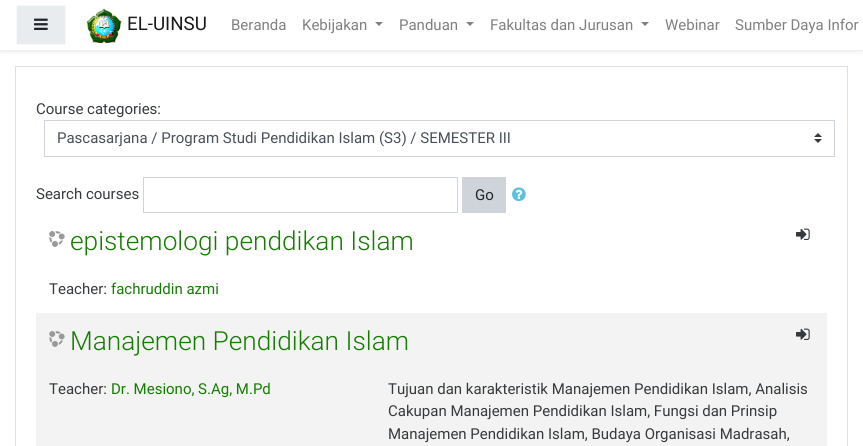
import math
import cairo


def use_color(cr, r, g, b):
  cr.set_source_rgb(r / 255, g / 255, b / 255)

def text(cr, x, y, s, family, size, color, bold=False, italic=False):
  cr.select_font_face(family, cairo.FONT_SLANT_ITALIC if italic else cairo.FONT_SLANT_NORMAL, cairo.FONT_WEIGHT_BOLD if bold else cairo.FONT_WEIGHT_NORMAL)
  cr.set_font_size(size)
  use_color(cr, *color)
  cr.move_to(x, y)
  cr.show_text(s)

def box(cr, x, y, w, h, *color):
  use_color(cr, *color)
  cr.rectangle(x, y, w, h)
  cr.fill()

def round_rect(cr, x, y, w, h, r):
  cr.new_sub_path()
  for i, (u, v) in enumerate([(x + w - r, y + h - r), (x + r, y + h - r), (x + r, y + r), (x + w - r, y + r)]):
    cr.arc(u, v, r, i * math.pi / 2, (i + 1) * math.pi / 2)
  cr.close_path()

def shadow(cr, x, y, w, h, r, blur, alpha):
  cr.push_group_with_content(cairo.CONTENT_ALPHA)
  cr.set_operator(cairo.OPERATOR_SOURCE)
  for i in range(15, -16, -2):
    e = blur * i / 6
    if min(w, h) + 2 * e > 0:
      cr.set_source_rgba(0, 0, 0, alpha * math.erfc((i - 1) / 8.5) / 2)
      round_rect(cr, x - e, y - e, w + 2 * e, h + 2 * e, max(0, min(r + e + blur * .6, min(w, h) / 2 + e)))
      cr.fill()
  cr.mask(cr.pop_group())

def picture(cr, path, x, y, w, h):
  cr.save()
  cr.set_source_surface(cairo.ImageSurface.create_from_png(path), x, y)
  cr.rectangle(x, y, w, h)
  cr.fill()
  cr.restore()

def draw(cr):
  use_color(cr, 255, 255, 255)
  cr.paint()
  use_color(cr, 0, 0, 0)
  shadow(cr, 0, 2, 863, 50, 0, 2, 0.08)
  box(cr, 0, 0, 863, 50, 255, 255, 255)
  use_color(cr, 233, 236, 239)
  cr.rectangle(16.5, 5.5, 49, 39)
  cr.fill_preserve()
  use_color(cr, 248, 249, 250)
  cr.set_line_width(1)
  cr.stroke()
  picture(cr, "img_01.png", 34, 18, 14, 12)
  picture(cr, "img_02.png", 86, 8, 36, 35)
  use_color(cr, 128, 128, 128)
  cr.new_path()
  cr.move_to(375, 22)
  cr.line_to(383, 22)
  cr.line_to(379, 26)
  cr.close_path()
  cr.fill()
  cr.new_path()
  cr.move_to(466, 22)
  cr.line_to(474, 22)
  cr.line_to(470, 26)
  cr.close_path()
  cr.fill()
  cr.new_path()
  cr.move_to(641, 22)
  cr.line_to(649, 22)
  cr.line_to(645, 26)
  cr.close_path()
  cr.fill()
  cr.rectangle(15.5, 66.5, 832, 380)
  use_color(cr, 223, 223, 223)
  cr.stroke()
  picture(cr, "img_03.png", 814, 133, 8, 10)
  cr.rectangle(44.5, 120.5, 790, 36)
  use_color(cr, 206, 212, 218)
  cr.stroke()
  cr.rectangle(143.5, 177.5, 314, 35)
  cr.stroke()
  box(cr, 462, 177, 44, 36, 206, 212, 218)
  picture(cr, "img_04.png", 512, 187, 14, 15)
  picture(cr, "img_05.png", 49, 231, 16, 16)
  picture(cr, "img_06.png", 796, 228, 14, 12)
  box(cr, 36, 313, 791, 133, 243, 243, 243)
  picture(cr, "img_07.png", 49, 331, 16, 16)
  picture(cr, "img_08.png", 796, 328, 14, 12)
  text(cr, 127, 30, "EL-UINSU", "Roboto", 18.75, (26, 26, 26))
  text(cr, 231, 30, "Beranda", "Roboto", 15, (128, 128, 128))
  text(cr, 302, 30, "Kebijakan", "Roboto", 15, (128, 128, 128))
  text(cr, 399, 30, "Panduan", "Roboto", 15, (128, 128, 128))
  text(cr, 490, 30, "Fakultas dan Jurusan", "Roboto", 15, (128, 128, 128))
  text(cr, 665, 30, "Webinar", "Roboto", 15, (128, 128, 128))
  text(cr, 735, 30, "Sumber Daya Infor", "Roboto", 15, (128, 128, 128))
  text(cr, 36, 114, "Course categories:", "Roboto", 15, (55, 58, 60))
  text(cr, 57, 143, "Pascasarjana / Program Studi Pendidikan Islam (S3) / SEMESTER III", "Roboto", 15, (73, 80, 87))
  text(cr, 36, 199, "Search courses", "Roboto", 15, (55, 58, 60))
  text(cr, 475, 200, "Go", "Roboto", 15, (33, 37, 41))
  text(cr, 70, 250, "epistemologi penddikan Islam", "Roboto Light", 26.25, (20, 125, 0))
  text(cr, 49, 294, "Teacher:", "Roboto", 15, (55, 58, 60))
  text(cr, 111, 294, "fachruddin azmi", "Roboto", 15, (20, 125, 0))
  text(cr, 70, 350, "Manajemen Pendidikan Islam", "Roboto Light", 26.25, (20, 125, 0))
  text(cr, 49, 394, "Teacher:", "Roboto", 15, (55, 58, 60))
  text(cr, 111, 394, "Dr. Mesiono, S.Ag, M.Pd", "Roboto", 15, (20, 125, 0))
  text(cr, 388, 394, "Tujuan dan karakteristik Manajemen Pendidikan Islam, Analisis", "Roboto", 15, (55, 58, 60))
  text(cr, 388, 416, "Cakupan Manajemen Pendidikan Islam, Fungsi dan Prinsip", "Roboto", 15, (55, 58, 60))
  text(cr, 388, 439, "Manajemen Pendidikan Islam, Budaya Organisasi Madrasah,", "Roboto", 15, (55, 58, 60))


surface = cairo.ImageSurface(cairo.FORMAT_RGB24, 863, 446)
cr = cairo.Context(surface)
options = cairo.FontOptions()
options.set_hint_metrics(cairo.HINT_METRICS_OFF)
options.set_hint_style(cairo.HINT_STYLE_NONE)
cr.set_font_options(options)
cr.set_miter_limit(4)
draw(cr)
surface.write_to_png("out.png")
